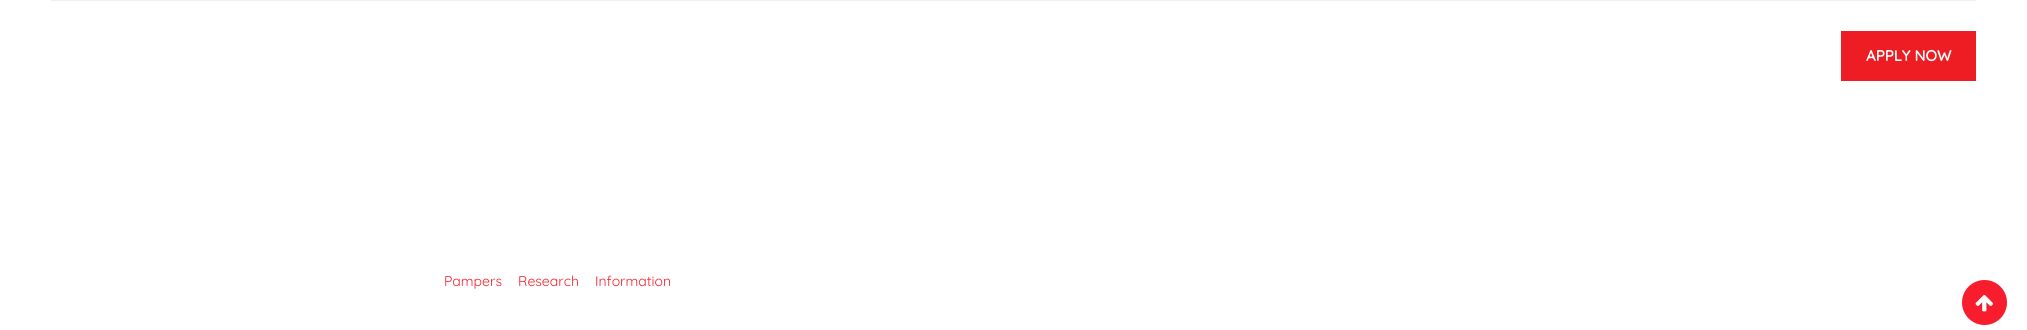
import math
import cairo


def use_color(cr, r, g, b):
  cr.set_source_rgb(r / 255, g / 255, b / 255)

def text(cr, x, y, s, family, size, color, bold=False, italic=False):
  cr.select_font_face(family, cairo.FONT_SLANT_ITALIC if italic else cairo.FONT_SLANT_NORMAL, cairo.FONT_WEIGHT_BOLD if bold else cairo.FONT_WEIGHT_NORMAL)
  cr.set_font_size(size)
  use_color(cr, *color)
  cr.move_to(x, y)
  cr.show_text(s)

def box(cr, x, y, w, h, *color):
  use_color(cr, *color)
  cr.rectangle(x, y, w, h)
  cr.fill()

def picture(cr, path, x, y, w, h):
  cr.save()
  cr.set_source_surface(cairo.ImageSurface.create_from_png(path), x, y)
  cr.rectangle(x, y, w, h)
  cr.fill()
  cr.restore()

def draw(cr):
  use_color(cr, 255, 255, 255)
  cr.paint()
  box(cr, 51, 0, 1925, 1, 240, 240, 240)
  box(cr, 1841, 31, 135, 50, 238, 29, 35)
  use_color(cr, 247, 29, 45)
  cr.arc(1984.5, 302.5, 22.5, 0, 2 * math.pi)
  cr.fill()
  picture(cr, "img_01.png", 1975, 295, 18, 17)
  text(cr, 1866, 61, "APPLY NOW", "Quicksand", 15, (255, 255, 255), bold=True)
  text(cr, 444, 286, "Pampers", "Quicksand", 14, (247, 29, 45))
  text(cr, 518, 286, "Research", "Quicksand", 14, (247, 29, 45))
  text(cr, 595, 286, "Information", "Quicksand", 14, (247, 29, 45))


surface = cairo.ImageSurface(cairo.FORMAT_RGB24, 2027, 330)
cr = cairo.Context(surface)
options = cairo.FontOptions()
options.set_hint_metrics(cairo.HINT_METRICS_OFF)
options.set_hint_style(cairo.HINT_STYLE_NONE)
cr.set_font_options(options)
cr.set_miter_limit(4)
draw(cr)
surface.write_to_png("out.png")
